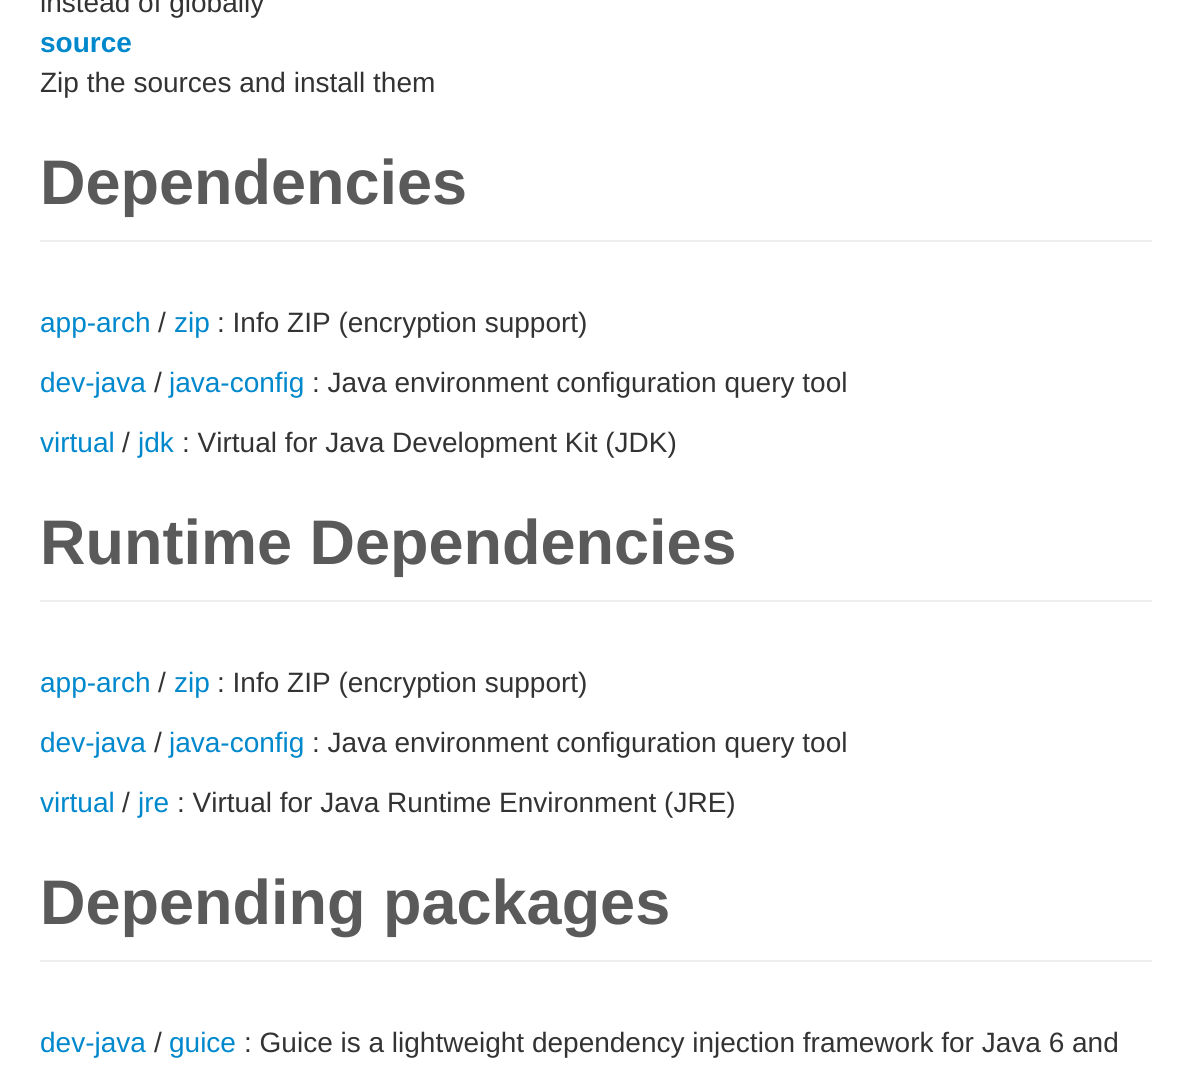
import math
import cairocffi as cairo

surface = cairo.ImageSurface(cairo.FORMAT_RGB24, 1191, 1079)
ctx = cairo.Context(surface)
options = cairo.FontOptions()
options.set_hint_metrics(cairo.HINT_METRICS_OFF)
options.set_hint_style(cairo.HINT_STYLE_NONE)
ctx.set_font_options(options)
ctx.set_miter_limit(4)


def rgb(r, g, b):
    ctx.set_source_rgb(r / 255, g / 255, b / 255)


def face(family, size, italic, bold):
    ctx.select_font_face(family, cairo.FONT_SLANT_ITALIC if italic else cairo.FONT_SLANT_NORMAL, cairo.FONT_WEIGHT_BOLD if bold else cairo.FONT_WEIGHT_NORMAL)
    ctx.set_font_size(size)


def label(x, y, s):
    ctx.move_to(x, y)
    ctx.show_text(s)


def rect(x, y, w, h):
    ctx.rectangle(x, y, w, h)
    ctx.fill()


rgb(255, 255, 255)
ctx.paint()
face('Liberation Sans', 28, 0, 0)
rgb(51, 51, 51)
label(40, 12, 'instead of globally')
face('Liberation Sans', 28, 0, 1)
rgb(0, 136, 204)
label(40, 52, 'source')
face('Liberation Sans', 28, 0, 0)
rgb(51, 51, 51)
label(40, 92, 'Zip the sources and install them')
rgb(238, 238, 238)
rect(40, 240, 1112, 2)
face('Liberation Sans', 63, 0, 1)
rgb(90, 90, 90)
label(40, 204, 'Dependencies')
face('Liberation Sans', 28, 0, 0)
rgb(0, 136, 204)
label(40, 332, 'app-arch')
rgb(51, 51, 51)
label(158, 332, '/')
rgb(0, 136, 204)
label(174, 332, 'zip')
rgb(51, 51, 51)
label(217, 332, ': Info ZIP (encryption support)')
rgb(0, 136, 204)
label(40, 392, 'dev-java')
rgb(51, 51, 51)
label(154, 392, '/')
rgb(0, 136, 204)
label(169, 392, 'java-config')
rgb(51, 51, 51)
label(312, 392, ': Java environment configuration query tool')
rgb(0, 136, 204)
label(40, 452, 'virtual')
rgb(51, 51, 51)
label(122, 452, '/')
rgb(0, 136, 204)
label(138, 452, 'jdk')
rgb(51, 51, 51)
label(182, 452, ': Virtual for Java Development Kit (JDK)')
rgb(238, 238, 238)
rect(40, 600, 1112, 2)
face('Liberation Sans', 63, 0, 1)
rgb(90, 90, 90)
label(40, 564, 'Runtime Dependencies')
face('Liberation Sans', 28, 0, 0)
rgb(0, 136, 204)
label(40, 692, 'app-arch')
rgb(51, 51, 51)
label(158, 692, '/')
rgb(0, 136, 204)
label(174, 692, 'zip')
rgb(51, 51, 51)
label(217, 692, ': Info ZIP (encryption support)')
rgb(0, 136, 204)
label(40, 752, 'dev-java')
rgb(51, 51, 51)
label(154, 752, '/')
rgb(0, 136, 204)
label(169, 752, 'java-config')
rgb(51, 51, 51)
label(312, 752, ': Java environment configuration query tool')
rgb(0, 136, 204)
label(40, 812, 'virtual')
rgb(51, 51, 51)
label(122, 812, '/')
rgb(0, 136, 204)
label(138, 812, 'jre')
rgb(51, 51, 51)
label(177, 812, ': Virtual for Java Runtime Environment (JRE)')
rgb(238, 238, 238)
rect(40, 960, 1112, 2)
face('Liberation Sans', 63, 0, 1)
rgb(90, 90, 90)
label(40, 924, 'Depending packages')
face('Liberation Sans', 28, 0, 0)
rgb(0, 136, 204)
label(40, 1052, 'dev-java')
rgb(51, 51, 51)
label(154, 1052, '/')
rgb(0, 136, 204)
label(169, 1052, 'guice')
rgb(51, 51, 51)
label(244, 1052, ': Guice is a lightweight dependency injection framework for Java 6 and')
surface.write_to_png('render.png')
